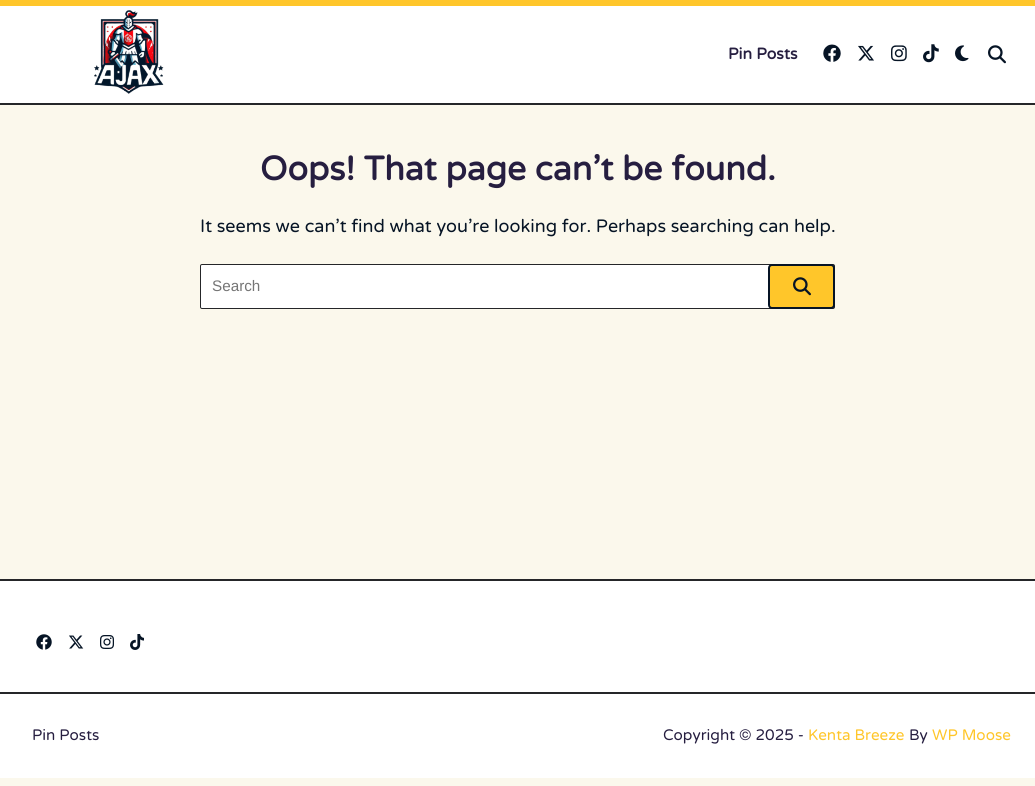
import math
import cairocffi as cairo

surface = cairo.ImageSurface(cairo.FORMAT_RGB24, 1035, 786)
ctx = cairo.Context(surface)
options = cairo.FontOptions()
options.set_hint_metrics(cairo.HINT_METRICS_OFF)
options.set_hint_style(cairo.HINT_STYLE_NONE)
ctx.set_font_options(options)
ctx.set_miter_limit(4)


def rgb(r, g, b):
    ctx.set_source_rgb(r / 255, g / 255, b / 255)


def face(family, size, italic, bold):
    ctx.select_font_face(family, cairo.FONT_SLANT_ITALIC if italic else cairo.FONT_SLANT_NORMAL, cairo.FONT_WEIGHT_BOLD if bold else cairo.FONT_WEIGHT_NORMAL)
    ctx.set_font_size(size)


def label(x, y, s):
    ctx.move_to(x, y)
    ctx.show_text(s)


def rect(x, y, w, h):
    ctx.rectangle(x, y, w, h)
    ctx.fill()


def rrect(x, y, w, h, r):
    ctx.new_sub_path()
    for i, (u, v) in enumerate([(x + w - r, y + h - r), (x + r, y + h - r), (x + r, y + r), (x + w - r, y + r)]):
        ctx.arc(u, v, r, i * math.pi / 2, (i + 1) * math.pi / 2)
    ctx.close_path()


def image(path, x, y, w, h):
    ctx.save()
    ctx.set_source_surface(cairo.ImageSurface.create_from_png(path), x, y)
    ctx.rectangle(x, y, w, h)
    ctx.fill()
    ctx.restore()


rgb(251, 248, 236)
ctx.paint()
rgb(255, 255, 255)
rect(0, 6, 1035, 97)
rgb(255, 198, 42)
rect(0, 0, 1035, 6)
rgb(37, 38, 41)
rect(0, 103, 1035, 2)
image('image0.png', 94, 10, 70, 84)
face('Varela Round', 15.75, 0, 1)
rgb(38, 30, 64)
label(728, 59, 'Pin Posts')
image('image1.png', 823, 44, 18, 18)
image('image2.png', 858, 45, 16, 16)
image('image3.png', 891, 45, 16, 17)
image('image4.png', 923, 44, 16, 19)
image('image5.png', 955, 45, 14, 17)
image('image6.png', 988, 45, 18, 19)
face('Varela Round', 33.75, 0, 1)
label(260, 180, 'Oops! That page can’t be found.')
face('Varela Round', 18, 0, 0)
rgb(6, 20, 37)
label(200, 232, 'It seems we can’t find what you’re looking for. Perhaps searching can help.')
rgb(255, 255, 255)
rrect(200.5, 264.5, 634, 44, 1.5)
ctx.fill_preserve()
rgb(37, 38, 41)
ctx.set_line_width(1)
ctx.stroke()
face('Liberation Sans', 15.25, 0, 0)
rgb(117, 117, 117)
label(212, 291, 'Search')
rgb(255, 198, 42)
rrect(769, 265, 65, 43, 3)
ctx.fill_preserve()
rgb(6, 20, 37)
ctx.set_line_width(2)
ctx.stroke()
image('image7.png', 793, 277, 18, 19)
rgb(255, 255, 255)
rect(0, 581, 1035, 111)
rgb(37, 38, 41)
rect(0, 579, 1035, 2)
image('image8.png', 36, 634, 16, 16)
image('image9.png', 69, 635, 15, 14)
image('image10.png', 100, 635, 14, 14)
image('image11.png', 130, 634, 14, 16)
rgb(255, 255, 255)
rect(0, 694, 1035, 84)
rgb(37, 38, 41)
rect(0, 692, 1035, 2)
face('Varela Round', 15.25, 0, 0)
rgb(38, 30, 64)
label(32, 740, 'Pin Posts')
label(663, 740, 'Copyright © 2025 -')
rgb(255, 198, 42)
label(808, 740, 'Kenta Breeze')
rgb(38, 30, 64)
label(909, 740, 'By')
rgb(255, 198, 42)
label(932, 740, 'WP Moose')
surface.write_to_png('render.png')
